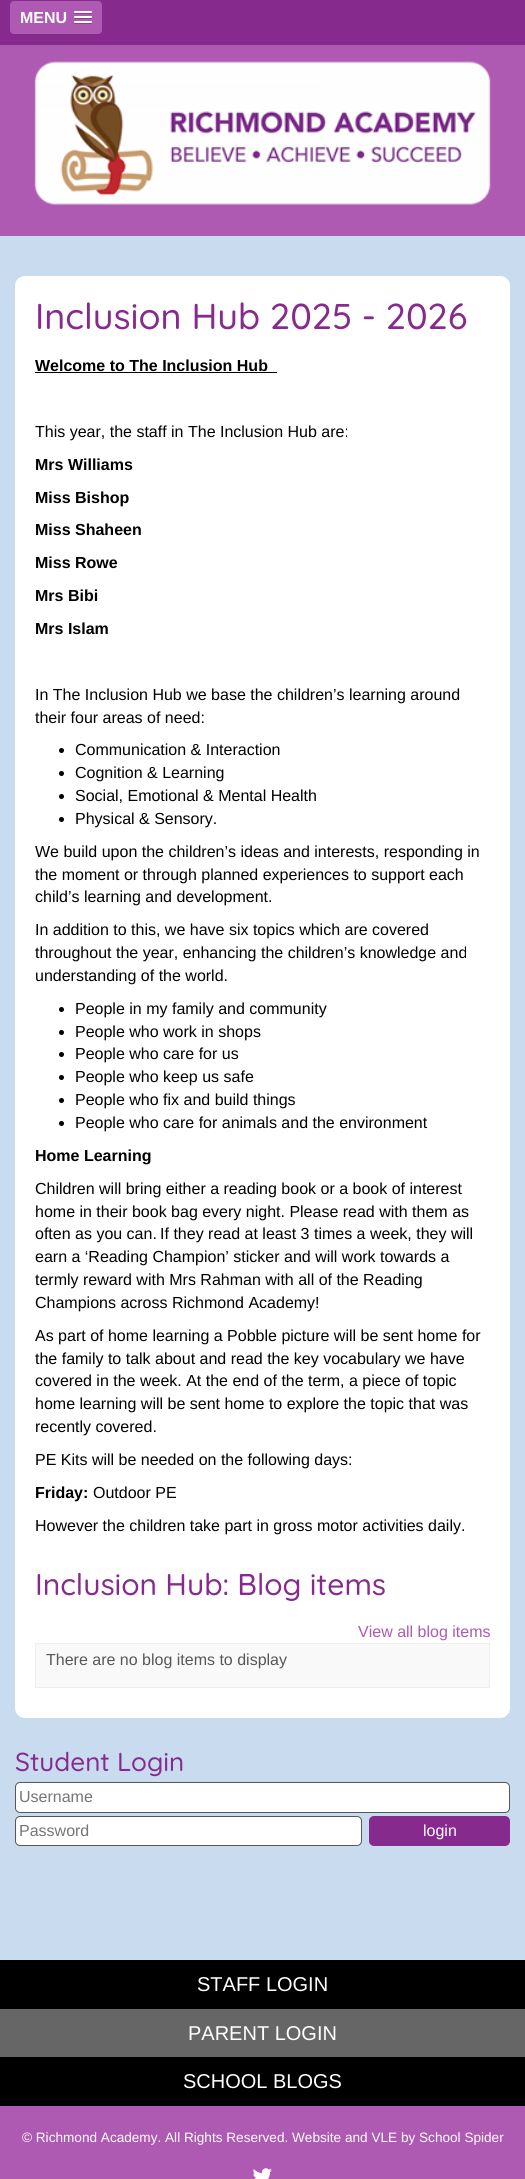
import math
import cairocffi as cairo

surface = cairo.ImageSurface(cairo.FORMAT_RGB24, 525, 2179)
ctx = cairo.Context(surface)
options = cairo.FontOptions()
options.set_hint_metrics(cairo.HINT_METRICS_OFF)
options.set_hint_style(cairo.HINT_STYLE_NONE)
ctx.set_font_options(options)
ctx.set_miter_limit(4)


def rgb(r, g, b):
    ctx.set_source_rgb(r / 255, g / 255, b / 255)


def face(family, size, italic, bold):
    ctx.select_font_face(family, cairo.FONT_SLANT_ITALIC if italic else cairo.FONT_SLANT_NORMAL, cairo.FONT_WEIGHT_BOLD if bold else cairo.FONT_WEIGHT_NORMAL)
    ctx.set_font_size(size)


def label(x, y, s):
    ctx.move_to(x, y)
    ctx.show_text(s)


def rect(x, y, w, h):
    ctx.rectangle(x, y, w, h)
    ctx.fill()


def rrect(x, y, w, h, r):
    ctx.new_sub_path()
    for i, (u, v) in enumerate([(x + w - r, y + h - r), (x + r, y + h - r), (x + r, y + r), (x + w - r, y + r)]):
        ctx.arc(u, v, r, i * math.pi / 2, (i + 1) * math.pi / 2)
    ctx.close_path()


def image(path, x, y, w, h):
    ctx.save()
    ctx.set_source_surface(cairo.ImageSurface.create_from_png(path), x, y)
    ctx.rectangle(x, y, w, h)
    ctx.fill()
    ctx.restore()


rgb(201, 220, 239)
ctx.paint()
rgb(135, 42, 142)
rect(0, 0, 525, 45)
rgb(174, 90, 178)
rrect(10, 1, 92, 33, 4)
ctx.fill()
face('Liberation Sans', 16, 0, 1)
rgb(255, 255, 255)
label(20, 23, 'MENU')
rgb(131, 68, 134)
ctx.new_path()
ctx.move_to(74, 12.5)
ctx.curve_to(73, 14.5, 77.5, 14, 77.5, 14)
ctx.line_to(88.5, 14)
ctx.curve_to(88.5, 14, 93, 14.5, 92, 12.5)
ctx.curve_to(91, 13.5, 84.5, 13, 83, 13)
ctx.curve_to(81.5, 13, 75, 13.5, 74, 12.5)
ctx.close_path()
ctx.fill()
rgb(255, 255, 255)
rrect(74, 11, 18, 2, 1)
ctx.fill()
rgb(131, 68, 134)
ctx.new_path()
ctx.move_to(74, 17.5)
ctx.curve_to(73, 19.5, 77.5, 19, 77.5, 19)
ctx.line_to(88.5, 19)
ctx.curve_to(88.5, 19, 93, 19.5, 92, 17.5)
ctx.curve_to(91, 18.5, 84.5, 18, 83, 18)
ctx.curve_to(81.5, 18, 75, 18.5, 74, 17.5)
ctx.close_path()
ctx.fill()
rgb(255, 255, 255)
rrect(74, 16, 18, 2, 1)
ctx.fill()
rgb(131, 68, 134)
ctx.new_path()
ctx.move_to(74, 22.5)
ctx.curve_to(73, 24.5, 77.5, 24, 77.5, 24)
ctx.line_to(88.5, 24)
ctx.curve_to(88.5, 24, 93, 24.5, 92, 22.5)
ctx.curve_to(91, 23.5, 84.5, 23, 83, 23)
ctx.curve_to(81.5, 23, 75, 23.5, 74, 22.5)
ctx.close_path()
ctx.fill()
rgb(255, 255, 255)
rrect(74, 21, 18, 2, 1)
ctx.fill()
rgb(174, 90, 178)
rect(0, 45, 525, 191)
image('image0.png', 34, 61, 457, 144)
rgb(255, 255, 255)
rrect(15, 276, 495, 1442, 10)
ctx.fill()
face('Quicksand Medium', 36, 0, 0)
rgb(135, 42, 142)
label(35, 329, 'Inclusion Hub 2025 - 2026')
face('Liberation Sans', 16, 0, 1)
rgb(0, 0, 0)
label(35, 371, 'Welcome to The Inclusion Hub')
rect(35, 372, 242, 1)
face('Liberation Sans', 16, 0, 0)
label(35, 437, 'This year, the staff in The Inclusion Hub are:')
face('Liberation Sans', 16, 0, 1)
label(35, 470, 'Mrs Williams')
label(35, 503, 'Miss Bishop')
label(35, 535, 'Miss Shaheen')
label(35, 568, 'Miss Rowe')
label(35, 601, 'Mrs Bibi')
label(35, 634, 'Mrs Islam')
face('Liberation Sans', 16, 0, 0)
label(35, 700, 'In The Inclusion Hub we base the children’s learning around')
label(35, 723, 'their four areas of need:')
ctx.new_path()
ctx.arc(61.5, 750.5, 2.5, 0, 2 * math.pi)
ctx.fill()
label(75, 755, 'Communication & Interaction')
ctx.new_path()
ctx.arc(61.5, 773.5, 2.5, 0, 2 * math.pi)
ctx.fill()
label(75, 778, 'Cognition & Learning')
ctx.new_path()
ctx.arc(61.5, 796.5, 2.5, 0, 2 * math.pi)
ctx.fill()
label(75, 801, 'Social, Emotional & Mental Health')
ctx.new_path()
ctx.arc(61.5, 819.5, 2.5, 0, 2 * math.pi)
ctx.fill()
label(75, 824, 'Physical & Sensory.')
label(35, 857, 'We build upon the children’s ideas and interests, responding in')
label(35, 880, 'the moment or through planned experiences to support each')
label(35, 902, 'child’s learning and development.')
label(35, 935, 'In addition to this, we have six topics which are covered')
label(35, 958, 'throughout the year, enhancing the children’s knowledge and')
label(35, 981, 'understanding of the world.')
ctx.new_path()
ctx.arc(61.5, 1009.5, 2.5, 0, 2 * math.pi)
ctx.fill()
label(75, 1014, 'People in my family and community')
ctx.new_path()
ctx.arc(61.5, 1032.5, 2.5, 0, 2 * math.pi)
ctx.fill()
label(75, 1037, 'People who work in shops')
ctx.new_path()
ctx.arc(61.5, 1054.5, 2.5, 0, 2 * math.pi)
ctx.fill()
label(75, 1059, 'People who care for us')
ctx.new_path()
ctx.arc(61.5, 1077.5, 2.5, 0, 2 * math.pi)
ctx.fill()
label(75, 1082, 'People who keep us safe')
ctx.new_path()
ctx.arc(61.5, 1100.5, 2.5, 0, 2 * math.pi)
ctx.fill()
label(75, 1105, 'People who fix and build things')
ctx.new_path()
ctx.arc(61.5, 1123.5, 2.5, 0, 2 * math.pi)
ctx.fill()
label(75, 1128, 'People who care for animals and the environment')
face('Liberation Sans', 16, 0, 1)
label(35, 1161, 'Home Learning')
face('Liberation Sans', 16, 0, 0)
label(35, 1194, 'Children will bring either a reading book or a book of interest')
label(35, 1217, 'home in their book bag every night. Please read with them as')
label(35, 1239, 'often as you can. If they read at least 3 times a week, they will')
label(35, 1262, 'earn a ‘Reading Champion’ sticker and will work towards a')
label(35, 1285, 'termly reward with Mrs Rahman with all of the Reading')
label(35, 1308, 'Champions across Richmond Academy!')
label(35, 1341, 'As part of home learning a Pobble picture will be sent home for')
label(35, 1364, 'the family to talk about and read the key vocabulary we have')
label(35, 1386, 'covered in the week. At the end of the term, a piece of topic')
label(35, 1409, 'home learning will be sent home to explore the topic that was')
label(35, 1432, 'recently covered.')
label(35, 1465, 'PE Kits will be needed on the following days:')
face('Liberation Sans', 16, 0, 1)
label(35, 1498, 'Friday:')
face('Liberation Sans', 16, 0, 0)
label(93, 1498, 'Outdoor PE')
label(35, 1531, 'However the children take part in gross motor activities daily.')
face('Quicksand Medium', 30, 0, 0)
rgb(135, 42, 142)
label(35, 1595, 'Inclusion Hub: Blog items')
face('Liberation Sans', 16, 0, 0)
rgb(174, 90, 178)
label(358, 1637, 'View all blog items')
rgb(249, 249, 249)
ctx.rectangle(35.5, 1643.5, 454, 44)
ctx.fill_preserve()
rgb(238, 238, 238)
ctx.set_line_width(1)
ctx.stroke()
rgb(87, 87, 87)
label(46, 1665, 'There are no blog items to display')
face('Quicksand Medium', 26, 0, 0)
rgb(135, 42, 142)
label(15, 1771, 'Student Login')
rgb(255, 255, 255)
rrect(15.5, 1782.5, 494, 30, 4.5)
ctx.fill_preserve()
rgb(87, 87, 87)
ctx.stroke()
face('Liberation Sans', 16, 0, 0)
rgb(117, 117, 117)
label(19, 1802, 'Username')
rgb(255, 255, 255)
rrect(15.5, 1816.5, 346, 29, 4.5)
ctx.fill_preserve()
rgb(87, 87, 87)
ctx.stroke()
rgb(117, 117, 117)
label(19, 1836, 'Password')
rgb(135, 42, 142)
rrect(369, 1816, 141, 30, 5)
ctx.fill()
rgb(255, 255, 255)
label(423, 1836, 'login')
rgb(0, 0, 0)
rect(0, 1960, 525, 49)
face('Liberation Sans', 20, 0, 0)
rgb(255, 255, 255)
label(197, 1991, 'STAFF LOGIN')
rgb(102, 102, 102)
rect(0, 2009, 525, 48)
rgb(255, 255, 255)
label(188, 2040, 'PARENT LOGIN')
rgb(0, 0, 0)
rect(0, 2057, 525, 49)
rgb(255, 255, 255)
label(183, 2088, 'SCHOOL BLOGS')
rgb(174, 90, 178)
rect(0, 2106, 525, 73)
face('Liberation Sans', 13.6, 0, 0)
rgb(255, 255, 255)
label(22, 2142, '© Richmond Academy. All Rights Reserved. Website and VLE by School Spider')
image('image1.png', 253, 2168, 19, 11)
surface.write_to_png('render.png')
